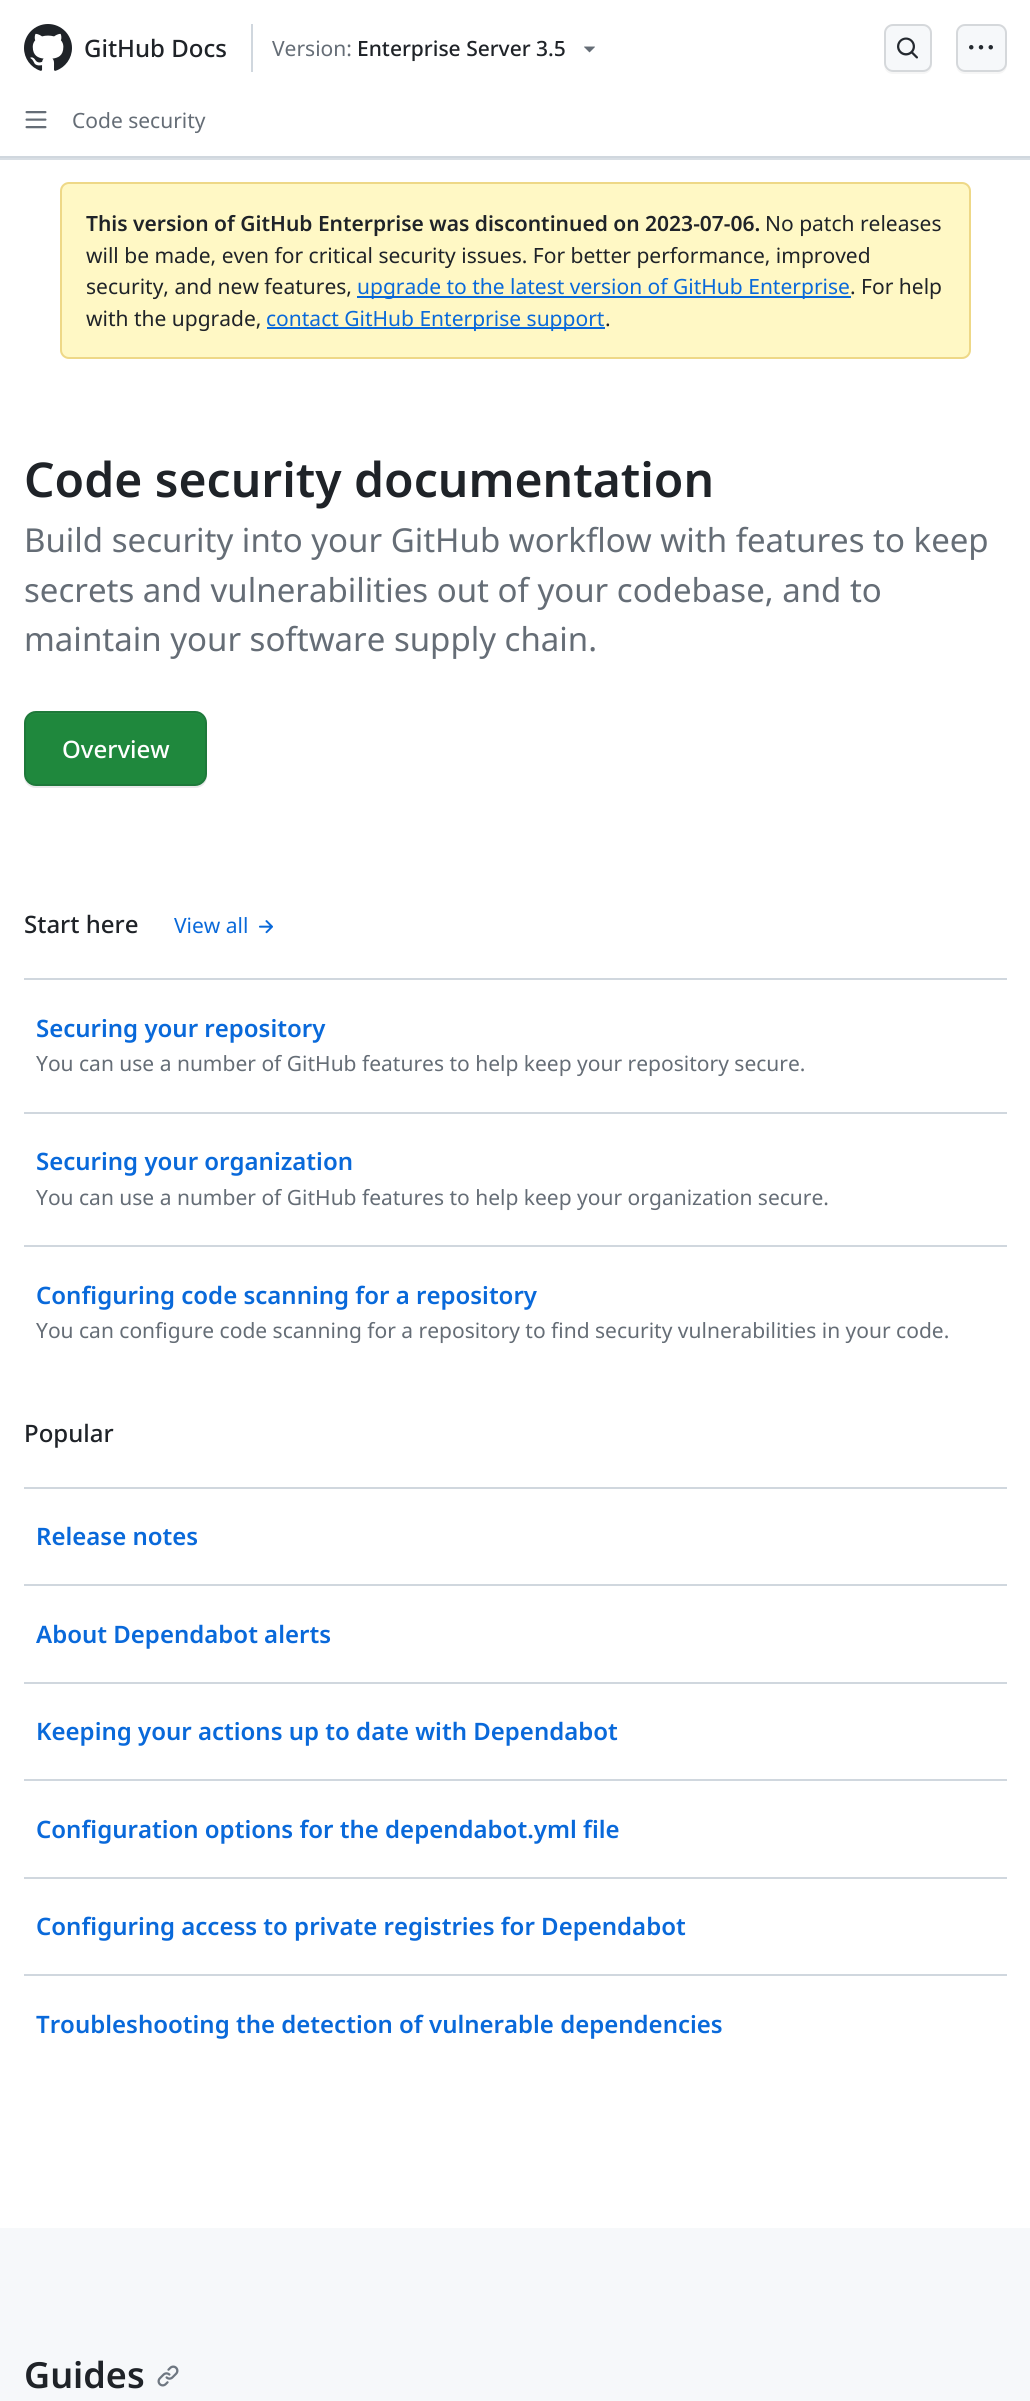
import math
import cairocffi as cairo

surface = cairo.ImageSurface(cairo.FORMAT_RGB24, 1030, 2401)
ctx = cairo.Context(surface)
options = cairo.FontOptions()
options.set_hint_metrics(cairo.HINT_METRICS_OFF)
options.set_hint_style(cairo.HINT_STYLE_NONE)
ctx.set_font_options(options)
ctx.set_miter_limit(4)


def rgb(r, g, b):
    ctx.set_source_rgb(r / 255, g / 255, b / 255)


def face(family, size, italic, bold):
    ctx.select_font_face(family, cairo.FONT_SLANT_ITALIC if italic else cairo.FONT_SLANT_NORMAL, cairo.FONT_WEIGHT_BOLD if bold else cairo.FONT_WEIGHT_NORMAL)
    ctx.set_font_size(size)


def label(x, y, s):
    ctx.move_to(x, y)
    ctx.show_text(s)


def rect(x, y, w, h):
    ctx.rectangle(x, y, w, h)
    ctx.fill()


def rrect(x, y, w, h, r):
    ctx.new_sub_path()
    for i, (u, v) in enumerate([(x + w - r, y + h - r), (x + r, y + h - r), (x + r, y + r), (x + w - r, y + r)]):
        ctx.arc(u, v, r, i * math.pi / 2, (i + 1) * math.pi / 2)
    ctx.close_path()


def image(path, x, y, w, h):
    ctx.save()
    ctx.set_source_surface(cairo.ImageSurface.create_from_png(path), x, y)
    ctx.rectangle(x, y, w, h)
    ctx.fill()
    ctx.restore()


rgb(255, 255, 255)
ctx.paint()
rgb(216, 222, 228)
rect(0, 158, 1030, 2)
rgb(208, 215, 222)
rect(0, 156, 1030, 2)
image('image0.png', 24, 24, 48, 47)
face('Noto Sans Medium', 24, 0, 0)
rgb(31, 35, 40)
label(84, 57, 'GitHub Docs')
rgb(208, 215, 222)
rect(251, 24, 2, 48)
face('Noto Sans', 21, 0, 0)
rgb(101, 109, 118)
label(272, 56, 'Version:')
face('Noto Sans Medium', 21, 0, 0)
rgb(31, 35, 40)
label(357, 56, 'Enterprise Server 3.5')
image('image1.png', 584, 46, 11, 7)
rgb(246, 246, 246)
ctx.new_path()
ctx.move_to(884, 66)
ctx.curve_to(885, 71, 888, 74, 893, 74)
ctx.line_to(923, 74)
ctx.curve_to(928, 74, 932, 70, 932, 65)
ctx.line_to(932, 35)
ctx.line_to(931, 32)
ctx.line_to(931, 65)
ctx.line_to(930, 68)
ctx.curve_to(927, 72, 922, 72, 918, 72)
ctx.line_to(898, 72)
ctx.curve_to(892, 72, 886, 72, 884, 66)
ctx.close_path()
ctx.fill()
rgb(246, 248, 250)
rrect(884, 24, 48, 48, 9)
ctx.fill()
rrect(885, 25, 46, 46, 8)
ctx.set_source_rgba(0.122, 0.137, 0.157, 0.15)
ctx.stroke()
image('image2.png', 897, 37, 21, 22)
rgb(246, 246, 246)
ctx.new_path()
ctx.move_to(956, 66)
ctx.curve_to(957, 71, 960, 74, 965, 74)
ctx.line_to(998, 74)
ctx.curve_to(1003, 74, 1007, 70, 1007, 65)
ctx.line_to(1007, 35)
ctx.line_to(1006, 32)
ctx.line_to(1006, 65)
ctx.line_to(1005, 68)
ctx.curve_to(1002, 73, 997, 72, 992, 72)
ctx.line_to(970, 72)
ctx.curve_to(964, 72, 958, 72, 956, 66)
ctx.close_path()
ctx.fill()
rgb(246, 248, 250)
rrect(956, 24, 51, 48, 9)
ctx.fill()
rrect(957, 25, 49, 46, 8)
ctx.set_source_rgba(0.122, 0.137, 0.157, 0.15)
ctx.stroke()
image('image3.png', 969, 45, 24, 5)
image('image4.png', 25, 111, 22, 18)
face('Noto Sans', 21, 0, 0)
rgb(101, 109, 118)
label(72, 128, 'Code security')
rgb(255, 248, 197)
rrect(60, 182, 911, 177, 9)
ctx.fill()
rrect(61, 183, 909, 175, 8)
ctx.set_source_rgba(0.831, 0.655, 0.173, 0.4)
ctx.stroke()
face('Noto Sans SemiBold', 21, 0, 0)
rgb(31, 35, 40)
label(86, 231, 'This version of GitHub Enterprise was discontinued on 2023-07-06.')
face('Noto Sans', 21, 0, 0)
label(765, 231, 'No patch releases')
label(86, 263, 'will be made, even for critical security issues. For better performance, improved')
label(86, 294, 'security, and new features,')
rgb(9, 105, 218)
rect(357, 296, 494, 2)
label(357, 294, 'upgrade to the latest version of GitHub Enterprise')
rgb(31, 35, 40)
label(850, 294, '. For help')
label(86, 326, 'with the upgrade,')
rgb(9, 105, 218)
rect(267, 327, 338, 2)
label(266, 326, 'contact GitHub Enterprise support')
rgb(31, 35, 40)
label(605, 326, '.')
face('Noto Sans SemiBold', 48, 0, 0)
label(24, 497, 'Code security documentation')
face('Noto Sans', 33, 0, 0)
rgb(101, 109, 118)
label(24, 552, 'Build security into your GitHub workflow with features to keep')
label(24, 602, 'secrets and vulnerabilities out of your codebase, and to')
label(24, 651, 'maintain your software supply chain.')
rgb(233, 233, 234)
ctx.new_path()
ctx.move_to(24, 774)
ctx.line_to(24, 776)
ctx.curve_to(24, 783, 29, 788, 36, 788)
ctx.line_to(195, 788)
ctx.curve_to(202, 788, 207, 783, 207, 776)
ctx.line_to(207, 774)
ctx.curve_to(207, 781, 202, 786, 195, 786)
ctx.line_to(36, 786)
ctx.curve_to(29, 786, 24, 781, 24, 774)
ctx.close_path()
ctx.fill()
rgb(31, 136, 61)
rrect(24, 711, 183, 75, 12)
ctx.fill()
rgb(38, 140, 67)
ctx.new_path()
ctx.move_to(36, 714)
ctx.line_to(195, 714)
ctx.curve_to(201, 714, 206, 719, 206, 724)
ctx.curve_to(206, 718, 201, 713, 195, 713)
ctx.line_to(37, 713)
ctx.curve_to(31, 713, 26, 718, 26, 724)
ctx.curve_to(26, 719, 30, 714, 36, 714)
ctx.close_path()
ctx.fill()
rrect(25, 712, 181, 73, 11)
ctx.set_source_rgba(0.122, 0.137, 0.157, 0.15)
ctx.stroke()
face('Noto Sans Medium', 24, 0, 0)
rgb(255, 255, 255)
label(62, 758, 'Overview')
rgb(31, 35, 40)
label(24, 933, 'Start here')
face('Noto Sans', 21, 0, 0)
rgb(9, 105, 218)
label(174, 933, 'View all')
image('image5.png', 259, 920, 14, 14)
rgb(208, 215, 222)
rect(24, 978, 983, 2)
face('Noto Sans SemiBold', 24, 0, 0)
rgb(9, 105, 218)
label(36, 1037, 'Securing your repository')
face('Noto Sans', 21, 0, 0)
rgb(101, 109, 118)
label(36, 1071, 'You can use a number of GitHub features to help keep your repository secure.')
rgb(208, 215, 222)
rect(24, 1112, 983, 2)
face('Noto Sans SemiBold', 24, 0, 0)
rgb(9, 105, 218)
label(36, 1170, 'Securing your organization')
face('Noto Sans', 21, 0, 0)
rgb(101, 109, 118)
label(36, 1205, 'You can use a number of GitHub features to help keep your organization secure.')
rgb(208, 215, 222)
rect(24, 1245, 983, 2)
face('Noto Sans SemiBold', 24, 0, 0)
rgb(9, 105, 218)
label(36, 1304, 'Configuring code scanning for a repository')
face('Noto Sans', 21, 0, 0)
rgb(101, 109, 118)
label(36, 1338, 'You can configure code scanning for a repository to find security vulnerabilities in your code.')
face('Noto Sans Medium', 24, 0, 0)
rgb(31, 35, 40)
label(24, 1442, 'Popular')
rgb(208, 215, 222)
rect(24, 1487, 983, 2)
face('Noto Sans SemiBold', 24, 0, 0)
rgb(9, 105, 218)
label(36, 1545, 'Release notes')
rgb(208, 215, 222)
rect(24, 1584, 983, 2)
rgb(9, 105, 218)
label(36, 1643, 'About Dependabot alerts')
rgb(208, 215, 222)
rect(24, 1682, 983, 2)
rgb(9, 105, 218)
label(36, 1740, 'Keeping your actions up to date with Dependabot')
rgb(208, 215, 222)
rect(24, 1779, 983, 2)
rgb(9, 105, 218)
label(36, 1838, 'Configuration options for the dependabot.yml file')
rgb(208, 215, 222)
rect(24, 1877, 983, 2)
rgb(9, 105, 218)
label(36, 1935, 'Configuring access to private registries for Dependabot')
rgb(208, 215, 222)
rect(24, 1974, 983, 2)
rgb(9, 105, 218)
label(36, 2033, 'Troubleshooting the detection of vulnerable dependencies')
rgb(246, 248, 250)
rect(0, 2228, 1030, 173)
face('Noto Sans SemiBold', 36, 0, 0)
rgb(31, 35, 40)
label(24, 2388, 'Guides')
image('image6.png', 157, 2365, 22, 22)
surface.write_to_png('render.png')
